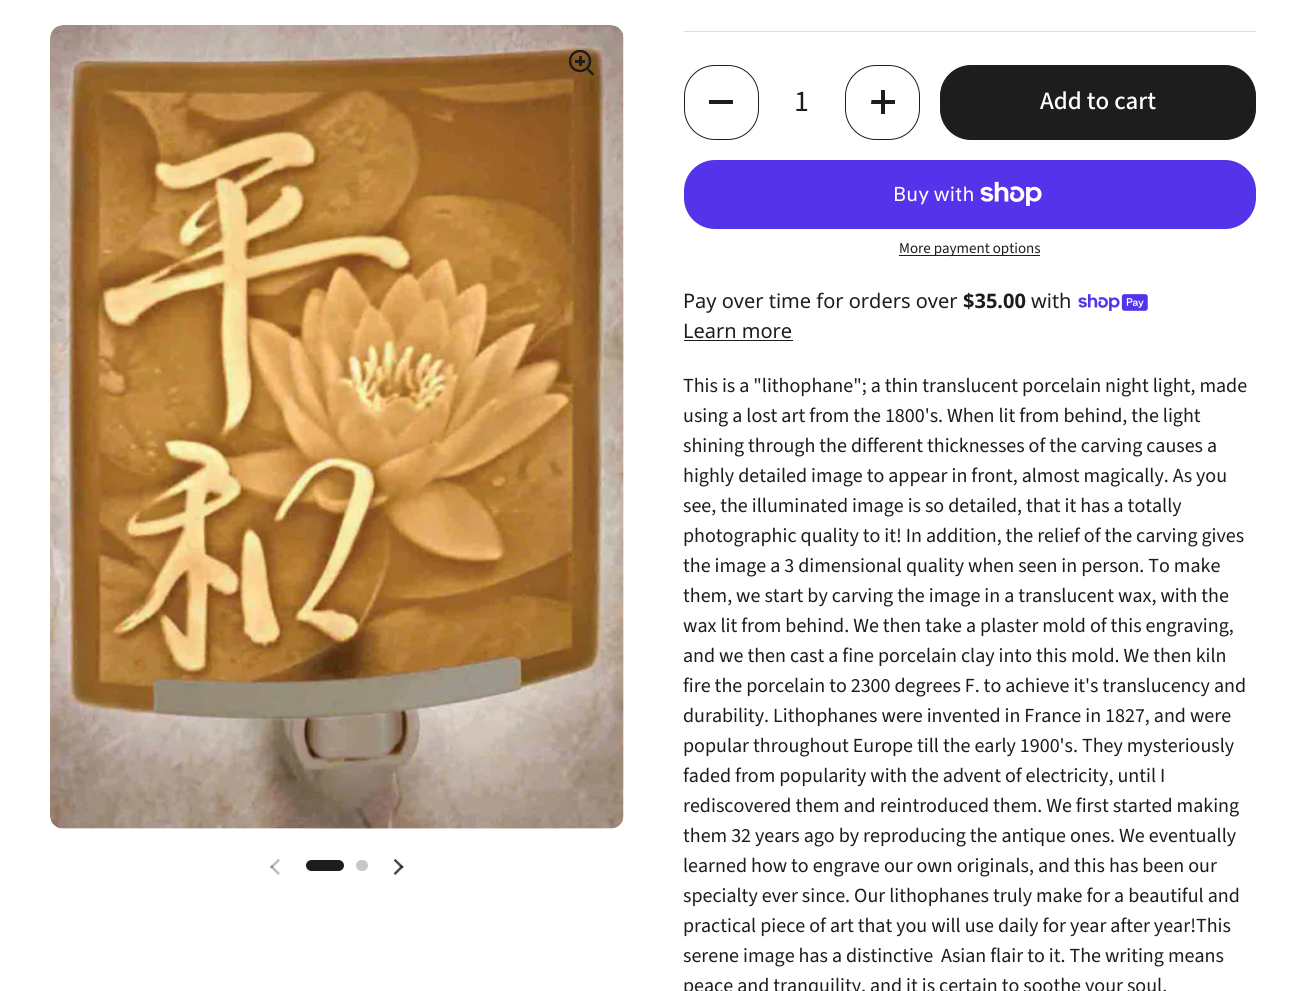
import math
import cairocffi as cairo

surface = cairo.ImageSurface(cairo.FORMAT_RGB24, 1306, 991)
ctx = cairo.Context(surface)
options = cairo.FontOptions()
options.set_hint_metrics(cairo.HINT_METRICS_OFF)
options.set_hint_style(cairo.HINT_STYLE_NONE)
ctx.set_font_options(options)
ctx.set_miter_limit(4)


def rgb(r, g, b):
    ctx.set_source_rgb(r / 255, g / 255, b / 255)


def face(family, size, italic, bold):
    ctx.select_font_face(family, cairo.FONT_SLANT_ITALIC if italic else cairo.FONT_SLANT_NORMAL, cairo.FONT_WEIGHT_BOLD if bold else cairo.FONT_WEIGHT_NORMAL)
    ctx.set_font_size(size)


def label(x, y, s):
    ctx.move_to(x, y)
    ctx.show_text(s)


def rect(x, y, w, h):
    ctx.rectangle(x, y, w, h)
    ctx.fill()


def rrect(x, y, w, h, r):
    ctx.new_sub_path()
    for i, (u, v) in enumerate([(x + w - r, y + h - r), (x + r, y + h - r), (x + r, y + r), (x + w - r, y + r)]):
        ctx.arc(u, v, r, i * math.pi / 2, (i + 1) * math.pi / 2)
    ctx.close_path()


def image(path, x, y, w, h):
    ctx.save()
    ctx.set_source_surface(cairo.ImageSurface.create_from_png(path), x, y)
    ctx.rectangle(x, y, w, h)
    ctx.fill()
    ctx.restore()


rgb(255, 255, 255)
ctx.paint()
image('image0.png', 50, 25, 574, 804)
image('image1.png', 569, 50, 25, 26)
image('image2.png', 270, 859, 10, 16)
rgb(29, 29, 29)
rrect(306, 860, 38, 11, 5.5)
ctx.fill()
rgb(199, 199, 199)
rrect(356, 860, 12, 11, 5.5)
ctx.fill()
image('image3.png', 393, 859, 11, 16)
rgb(221, 221, 221)
rect(684, 31, 572, 1)
rrect(684.5, 65.5, 74, 74, 30.5)
rgb(29, 29, 29)
ctx.set_line_width(1)
ctx.stroke()
rect(709, 100, 24, 4)
face('Source Sans Pro', 30, 0, 0)
label(794, 111, '1')
rrect(845.5, 65.5, 74, 74, 30.5)
ctx.stroke()
rect(881, 90, 4, 24)
ctx.new_path()
ctx.move_to(895, 100)
ctx.line_to(895, 104)
ctx.line_to(871, 104)
ctx.line_to(871.5, 100)
ctx.close_path()
ctx.fill()
rrect(940.5, 65.5, 315, 74, 30.5)
ctx.fill_preserve()
ctx.stroke()
face('Source Sans Pro Medium', 25, 0, 0)
rgb(255, 255, 255)
label(1040, 109, 'Add to cart')
rgb(84, 51, 235)
rrect(684, 160, 572, 69, 31)
ctx.fill()
face('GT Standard', 20, 0, 0)
rgb(255, 255, 255)
label(893, 201, 'Buy with')
image('image4.png', 980, 181, 62, 25)
rgb(29, 29, 29)
rect(899, 255, 141, 1)
face('Source Sans Pro', 15, 0, 0)
label(899, 253, 'More payment options')
face('Noto Sans', 20, 0, 0)
label(683, 308, 'Pay over time for orders over')
face('Noto Sans', 20, 0, 1)
label(963, 308, '$35.00')
face('Noto Sans', 20, 0, 0)
label(1031, 308, 'with')
image('image5.png', 1078, 294, 70, 17)
label(683, 338, 'Learn more')
rect(684, 340, 109, 1)
face('Source Sans Pro', 20, 0, 0)
label(683, 392, 'This is a "lithophane"; a thin translucent porcelain night light, made')
label(683, 422, 'using a lost art from the 1800\'s. When lit from behind, the light')
label(683, 452, 'shining through the different thicknesses of the carving causes a')
label(683, 482, 'highly detailed image to appear in front, almost magically. As you')
label(683, 512, 'see, the illuminated image is so detailed, that it has a totally')
label(683, 542, 'photographic quality to it! In addition, the relief of the carving gives')
label(683, 572, 'the image a 3 dimensional quality when seen in person. To make')
label(683, 602, 'them, we start by carving the image in a translucent wax, with the')
label(683, 632, 'wax lit from behind. We then take a plaster mold of this engraving,')
label(683, 662, 'and we then cast a fine porcelain clay into this mold. We then kiln')
label(683, 692, 'fire the porcelain to 2300 degrees F. to achieve it\'s translucency and')
label(683, 722, 'durability. Lithophanes were invented in France in 1827, and were')
label(683, 752, 'popular throughout Europe till the early 1900\'s. They mysteriously')
label(683, 782, 'faded from popularity with the advent of electricity, until I')
label(683, 812, 'rediscovered them and reintroduced them. We first started making')
label(683, 842, 'them 32 years ago by reproducing the antique ones. We eventually')
label(683, 872, 'learned how to engrave our own originals, and this has been our')
label(683, 902, 'specialty ever since. Our lithophanes truly make for a beautiful and')
label(683, 932, 'practical piece of art that you will use daily for year after year!This')
label(683, 962, 'serene image has a distinctive  Asian flair to it. The writing means')
label(683, 992, 'peace and tranquility, and it is certain to soothe your soul.')
surface.write_to_png('render.png')
